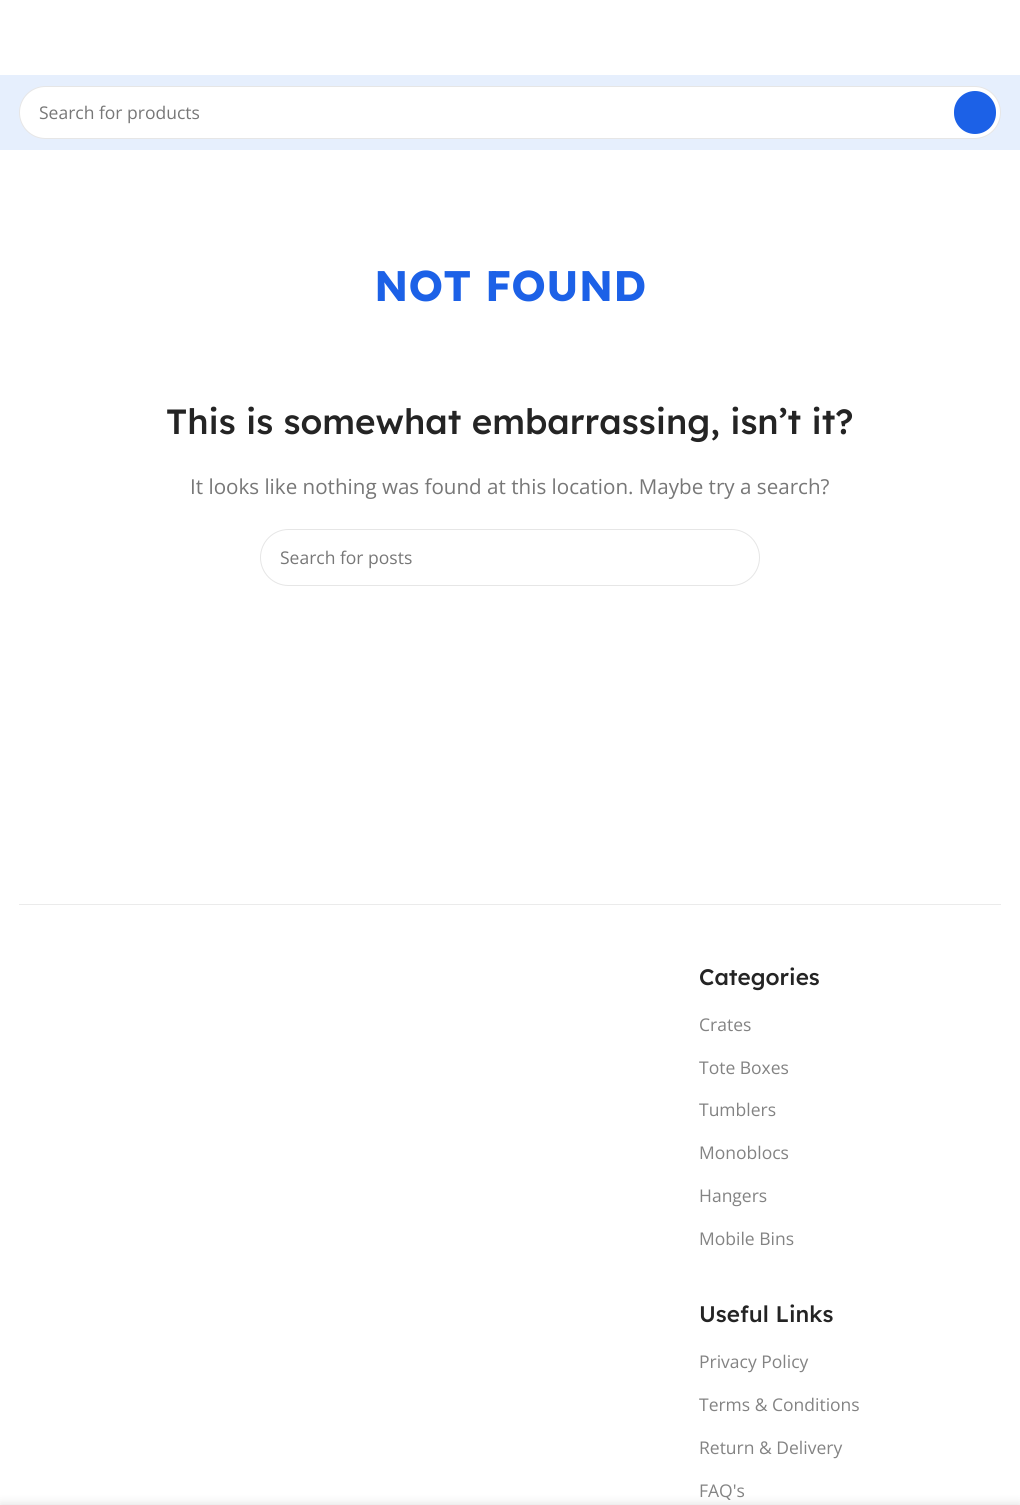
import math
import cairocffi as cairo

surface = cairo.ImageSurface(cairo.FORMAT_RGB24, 1020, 1505)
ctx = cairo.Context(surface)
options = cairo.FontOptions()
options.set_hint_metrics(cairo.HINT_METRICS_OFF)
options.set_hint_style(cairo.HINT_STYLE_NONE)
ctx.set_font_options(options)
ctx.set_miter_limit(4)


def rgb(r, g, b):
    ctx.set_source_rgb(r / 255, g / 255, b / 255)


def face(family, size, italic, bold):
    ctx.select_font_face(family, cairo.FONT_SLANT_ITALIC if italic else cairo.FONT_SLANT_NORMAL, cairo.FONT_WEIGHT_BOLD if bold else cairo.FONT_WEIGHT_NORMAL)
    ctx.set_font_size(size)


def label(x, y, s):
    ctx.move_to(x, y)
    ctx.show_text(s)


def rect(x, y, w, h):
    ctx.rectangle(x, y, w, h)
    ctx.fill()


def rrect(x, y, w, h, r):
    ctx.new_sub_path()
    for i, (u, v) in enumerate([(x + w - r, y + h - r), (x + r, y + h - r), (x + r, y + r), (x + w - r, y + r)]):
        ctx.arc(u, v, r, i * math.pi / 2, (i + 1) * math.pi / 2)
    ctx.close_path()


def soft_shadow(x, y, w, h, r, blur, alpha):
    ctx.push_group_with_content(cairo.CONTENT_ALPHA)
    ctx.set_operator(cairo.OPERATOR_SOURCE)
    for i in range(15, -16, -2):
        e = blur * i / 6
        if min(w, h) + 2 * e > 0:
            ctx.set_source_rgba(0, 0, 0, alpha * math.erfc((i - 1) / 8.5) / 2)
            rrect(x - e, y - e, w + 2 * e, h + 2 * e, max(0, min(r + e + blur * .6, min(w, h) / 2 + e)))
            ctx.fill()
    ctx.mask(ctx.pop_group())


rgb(255, 255, 255)
ctx.paint()
rgb(230, 239, 253)
rect(0, 75, 1020, 75)
rgb(255, 255, 255)
rrect(19, 86, 982, 53, 26.5)
ctx.fill()
rrect(19.5, 86.5, 981, 52, 26)
ctx.set_source_rgba(0, 0, 0, 0.1)
ctx.set_line_width(1)
ctx.stroke()
face('Open Sans', 17.5, 0, 0)
rgb(119, 119, 119)
label(39, 119, 'Search for products')
rgb(28, 97, 231)
rrect(954, 91, 42, 43, 21)
ctx.fill()
face('Lexend Deca', 42.75, 0, 1)
label(374, 301, 'NOT FOUND')
face('Lexend Deca Medium', 35, 0, 0)
rgb(36, 36, 36)
label(166, 434, 'This is somewhat embarrassing, isn’t it?')
face('Open Sans', 20.6, 0, 0)
rgb(119, 119, 119)
label(190, 494, 'It looks like nothing was found at this location. Maybe try a search?')
rrect(260.5, 529.5, 499, 56, 28)
rgb(230, 230, 230)
ctx.stroke()
face('Open Sans', 17.5, 0, 0)
rgb(119, 119, 119)
label(280, 564, 'Search for posts')
rgb(235, 235, 235)
rect(19, 904, 982, 1)
face('Lexend Deca Medium', 22.5, 0, 0)
rgb(36, 36, 36)
label(699, 985, 'Categories')
face('Open Sans', 17.5, 0, 0)
rgb(131, 131, 131)
label(699, 1031, 'Crates')
label(699, 1074, 'Tote Boxes')
label(699, 1116, 'Tumblers')
label(699, 1159, 'Monoblocs')
label(699, 1202, 'Hangers')
label(699, 1245, 'Mobile Bins')
face('Lexend Deca Medium', 22.5, 0, 0)
rgb(36, 36, 36)
label(699, 1322, 'Useful Links')
face('Open Sans', 17.5, 0, 0)
rgb(131, 131, 131)
label(699, 1368, 'Privacy Policy')
label(699, 1411, 'Terms & Conditions')
label(699, 1454, 'Return & Delivery')
label(699, 1497, 'FAQ\'s')
rgb(0, 0, 0)
soft_shadow(0, 1505, 1020, 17, 0, 5.5, 0.14)
surface.write_to_png('render.png')
